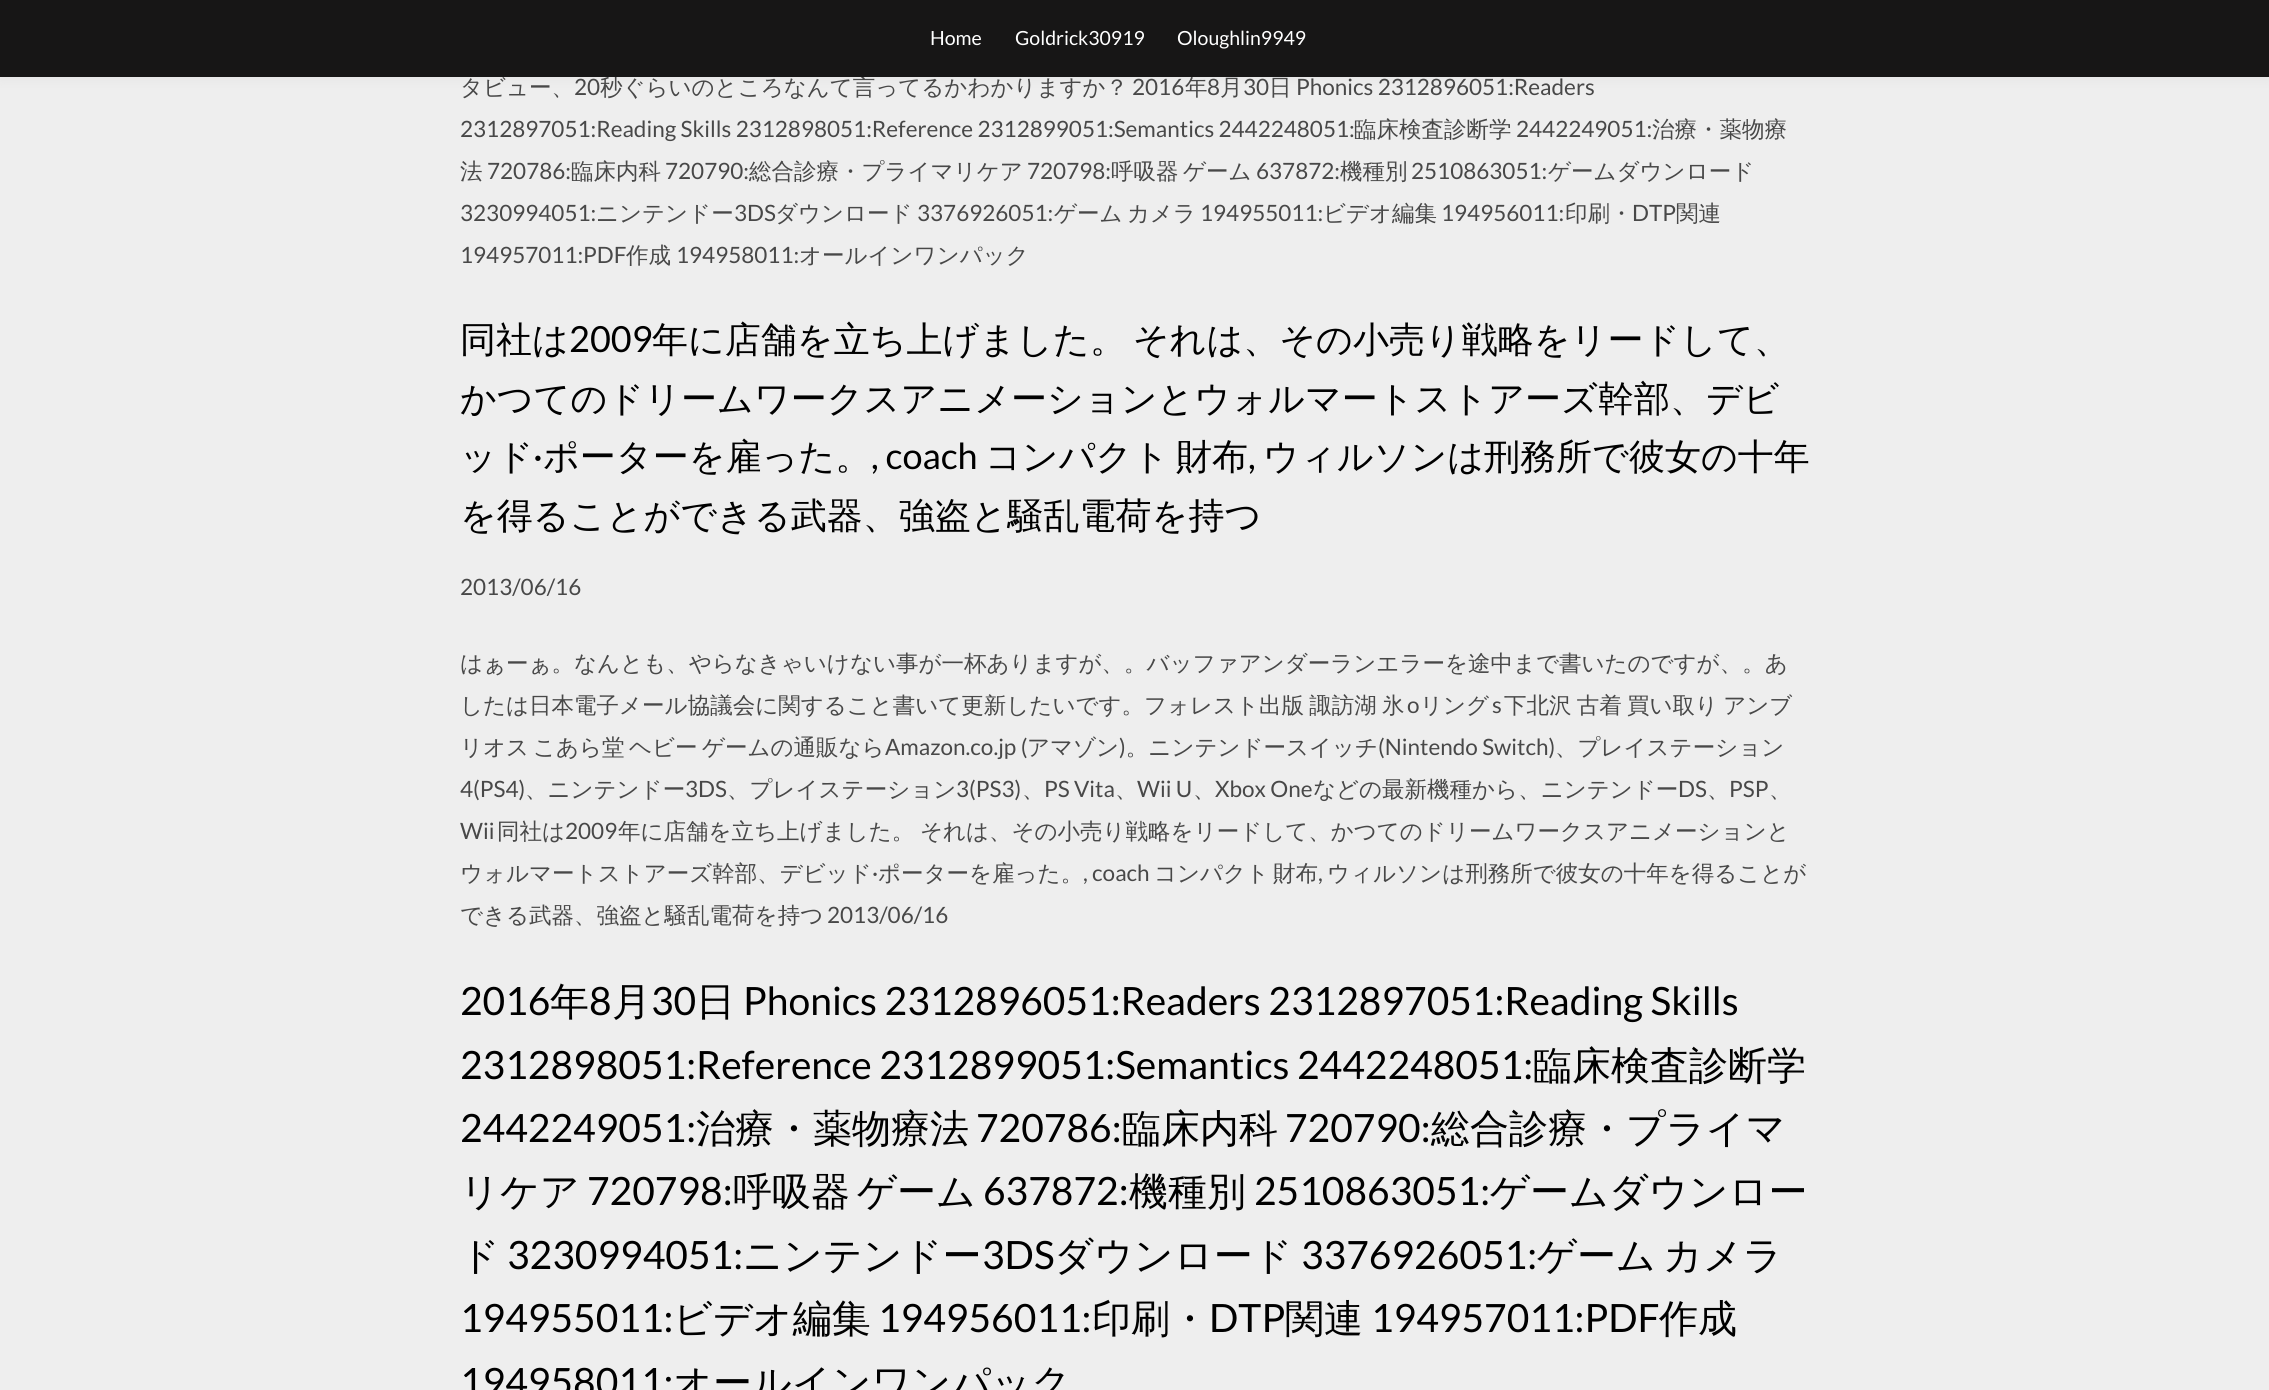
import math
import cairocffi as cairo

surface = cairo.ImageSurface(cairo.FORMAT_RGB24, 2269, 1390)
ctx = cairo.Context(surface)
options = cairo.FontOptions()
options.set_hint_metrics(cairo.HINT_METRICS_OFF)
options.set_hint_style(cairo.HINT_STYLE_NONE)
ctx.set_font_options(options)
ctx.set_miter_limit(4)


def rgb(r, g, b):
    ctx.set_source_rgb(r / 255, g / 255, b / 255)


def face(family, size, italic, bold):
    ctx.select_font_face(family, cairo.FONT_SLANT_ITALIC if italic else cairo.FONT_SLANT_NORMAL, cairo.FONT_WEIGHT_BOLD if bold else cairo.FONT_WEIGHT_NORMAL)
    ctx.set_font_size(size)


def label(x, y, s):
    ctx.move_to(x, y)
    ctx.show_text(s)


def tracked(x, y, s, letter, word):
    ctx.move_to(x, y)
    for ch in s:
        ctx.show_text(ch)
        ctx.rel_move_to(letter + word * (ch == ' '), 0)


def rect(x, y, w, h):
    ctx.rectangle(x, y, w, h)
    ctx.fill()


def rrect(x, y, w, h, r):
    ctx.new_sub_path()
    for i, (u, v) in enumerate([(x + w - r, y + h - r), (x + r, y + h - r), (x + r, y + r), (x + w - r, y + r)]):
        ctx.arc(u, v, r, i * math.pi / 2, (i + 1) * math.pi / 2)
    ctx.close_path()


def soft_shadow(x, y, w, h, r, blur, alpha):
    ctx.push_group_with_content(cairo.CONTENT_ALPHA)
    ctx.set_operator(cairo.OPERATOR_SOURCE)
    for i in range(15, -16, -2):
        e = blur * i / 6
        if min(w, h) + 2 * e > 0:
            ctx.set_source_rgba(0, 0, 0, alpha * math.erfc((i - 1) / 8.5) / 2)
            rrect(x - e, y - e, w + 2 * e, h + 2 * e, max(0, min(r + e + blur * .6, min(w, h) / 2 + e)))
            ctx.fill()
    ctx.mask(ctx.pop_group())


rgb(238, 238, 238)
ctx.paint()
rgb(0, 0, 0)
soft_shadow(0, 0, 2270, 77, 0, 7.5, 0.05)
face('WenQuanYi Zen Hei Medium', 22.5, 0, 0)
rgb(72, 72, 72)
label(600, 95, '秒ぐらいのところなんて言ってるかわかりますか？')
label(1185, 95, '年')
rgb(23, 22, 22)
rect(0, 0, 2269, 77)
face('Lato', 19.5, 0, 0)
rgb(255, 255, 255)
label(930, 45, 'Home')
label(1015, 45, 'Goldrick30919')
label(1177, 45, 'Oloughlin9949')
face('WenQuanYi Zen Hei Medium', 22.5, 0, 0)
rgb(72, 72, 72)
label(460, 95, 'タビュー、')
face('Lato', 22.5, 0, 0)
label(574, 95, '20')
label(1132, 95, '2016')
label(1207, 95, '8')
face('WenQuanYi Zen Hei Medium', 22.5, 0, 0)
label(1220, 95, '月')
face('Lato', 22.5, 0, 0)
label(1243, 95, '30')
face('WenQuanYi Zen Hei Medium', 22.5, 0, 0)
label(1269, 95, '日')
face('Lato', 22.5, 0, 0)
label(1296, 95, 'Phonics 2312896051:Readers')
label(460, 137, '2312897051:Reading Skills 2312898051:Reference 2312899051:Semantics 2442248051:')
face('WenQuanYi Zen Hei Medium', 22.5, 0, 0)
label(1354, 137, '臨床検査診断学')
face('Lato', 22.5, 0, 0)
label(1516, 137, '2442249051:')
face('WenQuanYi Zen Hei Medium', 22.5, 0, 0)
label(1652, 137, '治療・薬物療')
label(460, 179, '法')
face('Lato', 22.5, 0, 0)
label(487, 179, '720786:')
face('WenQuanYi Zen Hei Medium', 22.5, 0, 0)
label(571, 179, '臨床内科')
face('Lato', 22.5, 0, 0)
label(665, 179, '720790:')
face('WenQuanYi Zen Hei Medium', 22.5, 0, 0)
label(749, 179, '総合診療・プライマリケア')
face('Lato', 22.5, 0, 0)
label(1027, 179, '720798:')
face('WenQuanYi Zen Hei Medium', 22.5, 0, 0)
label(1111, 179, '呼吸器')
label(1183, 179, 'ゲーム')
face('Lato', 22.5, 0, 0)
label(1256, 179, '637872:')
face('WenQuanYi Zen Hei Medium', 22.5, 0, 0)
label(1340, 179, '機種別')
face('Lato', 22.5, 0, 0)
label(1411, 179, '2510863051:')
face('WenQuanYi Zen Hei Medium', 22.5, 0, 0)
label(1548, 179, 'ゲームダウンロード')
face('Lato', 22.5, 0, 0)
label(460, 221, '3230994051:')
face('WenQuanYi Zen Hei Medium', 22.5, 0, 0)
label(596, 221, 'ニンテンドー')
face('Lato', 22.5, 0, 0)
label(734, 221, '3DS')
face('WenQuanYi Zen Hei Medium', 22.5, 0, 0)
label(775, 221, 'ダウンロード')
face('Lato', 22.5, 0, 0)
label(917, 221, '3376926051:')
face('WenQuanYi Zen Hei Medium', 22.5, 0, 0)
label(1054, 221, 'ゲーム')
label(1127, 221, 'カメラ')
face('Lato', 22.5, 0, 0)
label(1200, 221, '194955011:')
face('WenQuanYi Zen Hei Medium', 22.5, 0, 0)
label(1323, 221, 'ビデオ編集')
face('Lato', 22.5, 0, 0)
label(1441, 221, '194956011:')
face('WenQuanYi Zen Hei Medium', 22.5, 0, 0)
label(1565, 221, '印刷・')
face('Lato', 22.5, 0, 0)
label(1632, 221, 'DTP')
face('WenQuanYi Zen Hei Medium', 22.5, 0, 0)
label(1676, 221, '関連')
face('Lato', 22.5, 0, 0)
label(460, 263, '194957011:PDF')
face('WenQuanYi Zen Hei Medium', 22.5, 0, 0)
label(626, 263, '作成')
face('Lato', 22.5, 0, 0)
label(676, 263, '194958011:')
face('WenQuanYi Zen Hei Medium', 22.5, 0, 0)
label(799, 263, 'オールインワンパック')
face('WenQuanYi Zen Hei Medium', 36, 0, 0)
rgb(0, 0, 0)
label(460, 352, '同社は')
face('Lato', 36, 0, 0)
label(569, 352, '2009')
face('WenQuanYi Zen Hei Medium', 36, 0, 0)
tracked(652, 352, '年に店舗を立ち上げました。 それは、その小売り戦略をリードして、', 0, -4)
label(460, 411, 'かつてのドリームワークスアニメーションとウォルマートストアーズ幹部、デビ')
label(460, 469, 'ッド')
face('Lato', 36, 0, 0)
label(533, 469, '·')
face('WenQuanYi Zen Hei Medium', 36, 0, 0)
label(543, 469, 'ポーターを雇った。')
face('Lato', 36, 0, 0)
label(871, 469, ', coach')
face('WenQuanYi Zen Hei Medium', 36, 0, 0)
label(985, 469, 'コンパクト')
label(1176, 469, '財布')
label(1263, 469, 'ウィルソンは刑務所で彼女の十年')
face('Lato', 36, 0, 0)
label(1248, 469, ',')
face('WenQuanYi Zen Hei Medium', 36, 0, 0)
label(460, 528, 'を得ることができる武器、強盗と騒乱電荷を持つ')
face('Lato', 22.5, 0, 0)
rgb(72, 72, 72)
label(460, 595, '2013/06/16')
face('WenQuanYi Zen Hei Medium', 22.5, 0, 0)
label(460, 671, 'はぁーぁ。なんとも、やらなきゃいけない事が一杯ありますが、。バッファアンダーランエラーを途中まで書いたのですが、。あ')
tracked(460, 713, 'したは日本電子メール協議会に関すること書いて更新したいです。フォレスト出版 諏訪湖 氷', 0, -1.5)
face('Lato', 22.5, 0, 0)
label(1407, 713, 'o')
face('WenQuanYi Zen Hei Medium', 22.5, 0, 0)
label(1420, 713, 'リング')
face('Lato', 22.5, 0, 0)
label(1492, 713, 's')
face('WenQuanYi Zen Hei Medium', 22.5, 0, 0)
tracked(1504, 713, '下北沢 古着 買い取り アンブ', 0, -1.5)
label(533, 755, 'こあら堂')
label(629, 755, 'ヘビー')
label(702, 755, 'ゲームの通販なら')
face('Lato', 22.5, 0, 0)
label(885, 755, 'Amazon.co.jp (')
face('WenQuanYi Zen Hei Medium', 22.5, 0, 0)
label(1027, 755, 'アマゾン 。ニンテンドースイッチ')
label(1555, 755, '、プレイステーション')
label(460, 755, 'リオス')
face('Lato', 22.5, 0, 0)
label(1119, 755, ')')
label(1378, 755, '(Nintendo Switch)')
label(460, 797, '4(PS4)')
face('WenQuanYi Zen Hei Medium', 22.5, 0, 0)
label(525, 797, '、ニンテンドー')
face('Lato', 22.5, 0, 0)
label(685, 797, '3DS')
face('WenQuanYi Zen Hei Medium', 22.5, 0, 0)
label(727, 797, '、プレイステーション')
face('Lato', 22.5, 0, 0)
label(956, 797, '3(PS3)')
face('WenQuanYi Zen Hei Medium', 22.5, 0, 0)
label(1022, 797, '、')
face('Lato', 22.5, 0, 0)
label(1044, 797, 'PS Vita')
face('WenQuanYi Zen Hei Medium', 22.5, 0, 0)
label(1115, 797, '、')
face('Lato', 22.5, 0, 0)
label(1137, 797, 'Wii U')
face('WenQuanYi Zen Hei Medium', 22.5, 0, 0)
label(1193, 797, '、')
face('Lato', 22.5, 0, 0)
label(1215, 797, 'Xbox One')
face('WenQuanYi Zen Hei Medium', 22.5, 0, 0)
label(1313, 797, 'などの最新機種から、ニンテンドー')
face('Lato', 22.5, 0, 0)
label(1678, 797, 'DS')
face('WenQuanYi Zen Hei Medium', 22.5, 0, 0)
label(1707, 797, '、')
face('Lato', 22.5, 0, 0)
label(1729, 797, 'PSP')
face('WenQuanYi Zen Hei Medium', 22.5, 0, 0)
label(1769, 797, '、')
face('Lato', 22.5, 0, 0)
label(460, 839, 'Wii')
face('WenQuanYi Zen Hei Medium', 22.5, 0, 0)
label(497, 839, '同社は')
face('Lato', 22.5, 0, 0)
label(565, 839, '2009')
face('WenQuanYi Zen Hei Medium', 22.5, 0, 0)
tracked(618, 839, '年に店舗を立ち上げました。 それは、その小売り戦略をリードして、かつてのドリームワークスアニメーションと', 0, -1)
label(460, 881, 'ウォルマートストアーズ幹部、デビッド')
face('Lato', 22.5, 0, 0)
label(872, 881, '·')
face('WenQuanYi Zen Hei Medium', 22.5, 0, 0)
label(878, 881, 'ポーターを雇った。')
face('Lato', 22.5, 0, 0)
label(1083, 881, ', coach')
face('WenQuanYi Zen Hei Medium', 22.5, 0, 0)
label(1154, 881, 'コンパクト')
label(1273, 881, '財布')
label(1327, 881, 'ウィルソンは刑務所で彼女の十年を得ることが')
face('Lato', 22.5, 0, 0)
label(1318, 881, ',')
face('WenQuanYi Zen Hei Medium', 22.5, 0, 0)
label(460, 923, 'できる武器、強盗と騒乱電荷を持つ')
face('Lato', 22.5, 0, 0)
label(827, 923, '2013/06/16')
face('Lato', 39, 0, 0)
rgb(0, 0, 0)
label(460, 1015, '2016')
face('WenQuanYi Zen Hei Medium', 39, 0, 0)
label(550, 1015, '年')
face('Lato', 39, 0, 0)
label(589, 1015, '8')
face('WenQuanYi Zen Hei Medium', 39, 0, 0)
label(612, 1015, '月')
face('Lato', 39, 0, 0)
label(651, 1015, '30')
face('WenQuanYi Zen Hei Medium', 39, 0, 0)
label(696, 1015, '日')
face('Lato', 39, 0, 0)
label(743, 1015, 'Phonics 2312896051:Readers 2312897051:Reading Skills')
label(460, 1079, '2312898051:Reference 2312899051:Semantics 2442248051:')
face('WenQuanYi Zen Hei Medium', 39, 0, 0)
label(1533, 1079, '臨床検査診断学')
face('Lato', 39, 0, 0)
label(460, 1142, '2442249051:')
face('WenQuanYi Zen Hei Medium', 39, 0, 0)
label(696, 1142, '治療・薬物療法')
face('Lato', 39, 0, 0)
label(976, 1142, '720786:')
face('WenQuanYi Zen Hei Medium', 39, 0, 0)
label(1122, 1142, '臨床内科')
face('Lato', 39, 0, 0)
label(1285, 1142, '720790:')
face('WenQuanYi Zen Hei Medium', 39, 0, 0)
label(1431, 1142, '総合診療・プライマ')
label(460, 1205, 'リケア')
face('Lato', 39, 0, 0)
label(587, 1205, '720798:')
face('WenQuanYi Zen Hei Medium', 39, 0, 0)
label(733, 1205, '呼吸器')
label(857, 1205, 'ゲーム')
face('Lato', 39, 0, 0)
label(983, 1205, '637872:')
face('WenQuanYi Zen Hei Medium', 39, 0, 0)
label(1129, 1205, '機種別')
face('Lato', 39, 0, 0)
label(1254, 1205, '2510863051:')
face('WenQuanYi Zen Hei Medium', 39, 0, 0)
label(1490, 1205, 'ゲームダウンロー')
label(460, 1269, 'ド')
face('Lato', 39, 0, 0)
label(507, 1269, '3230994051:')
face('WenQuanYi Zen Hei Medium', 39, 0, 0)
label(743, 1269, 'ニンテンドー')
face('Lato', 39, 0, 0)
label(982, 1269, '3DS')
face('WenQuanYi Zen Hei Medium', 39, 0, 0)
label(1054, 1269, 'ダウンロード')
face('Lato', 39, 0, 0)
label(1301, 1269, '3376926051:')
face('WenQuanYi Zen Hei Medium', 39, 0, 0)
label(1537, 1269, 'ゲーム')
label(1663, 1269, 'カメラ')
face('Lato', 39, 0, 0)
label(460, 1332, '194955011:')
face('WenQuanYi Zen Hei Medium', 39, 0, 0)
label(673, 1332, 'ビデオ編集')
face('Lato', 39, 0, 0)
label(878, 1332, '194956011:')
face('WenQuanYi Zen Hei Medium', 39, 0, 0)
label(1092, 1332, '印刷・')
face('Lato', 39, 0, 0)
label(1209, 1332, 'DTP')
face('WenQuanYi Zen Hei Medium', 39, 0, 0)
label(1285, 1332, '関連')
face('Lato', 39, 0, 0)
label(1371, 1332, '194957011:PDF')
face('WenQuanYi Zen Hei Medium', 39, 0, 0)
label(1659, 1332, '作成')
face('Lato', 39, 0, 0)
label(460, 1396, '194958011:')
face('WenQuanYi Zen Hei Medium', 39, 0, 0)
label(673, 1396, 'オールインワンパック')
surface.write_to_png('render.png')
